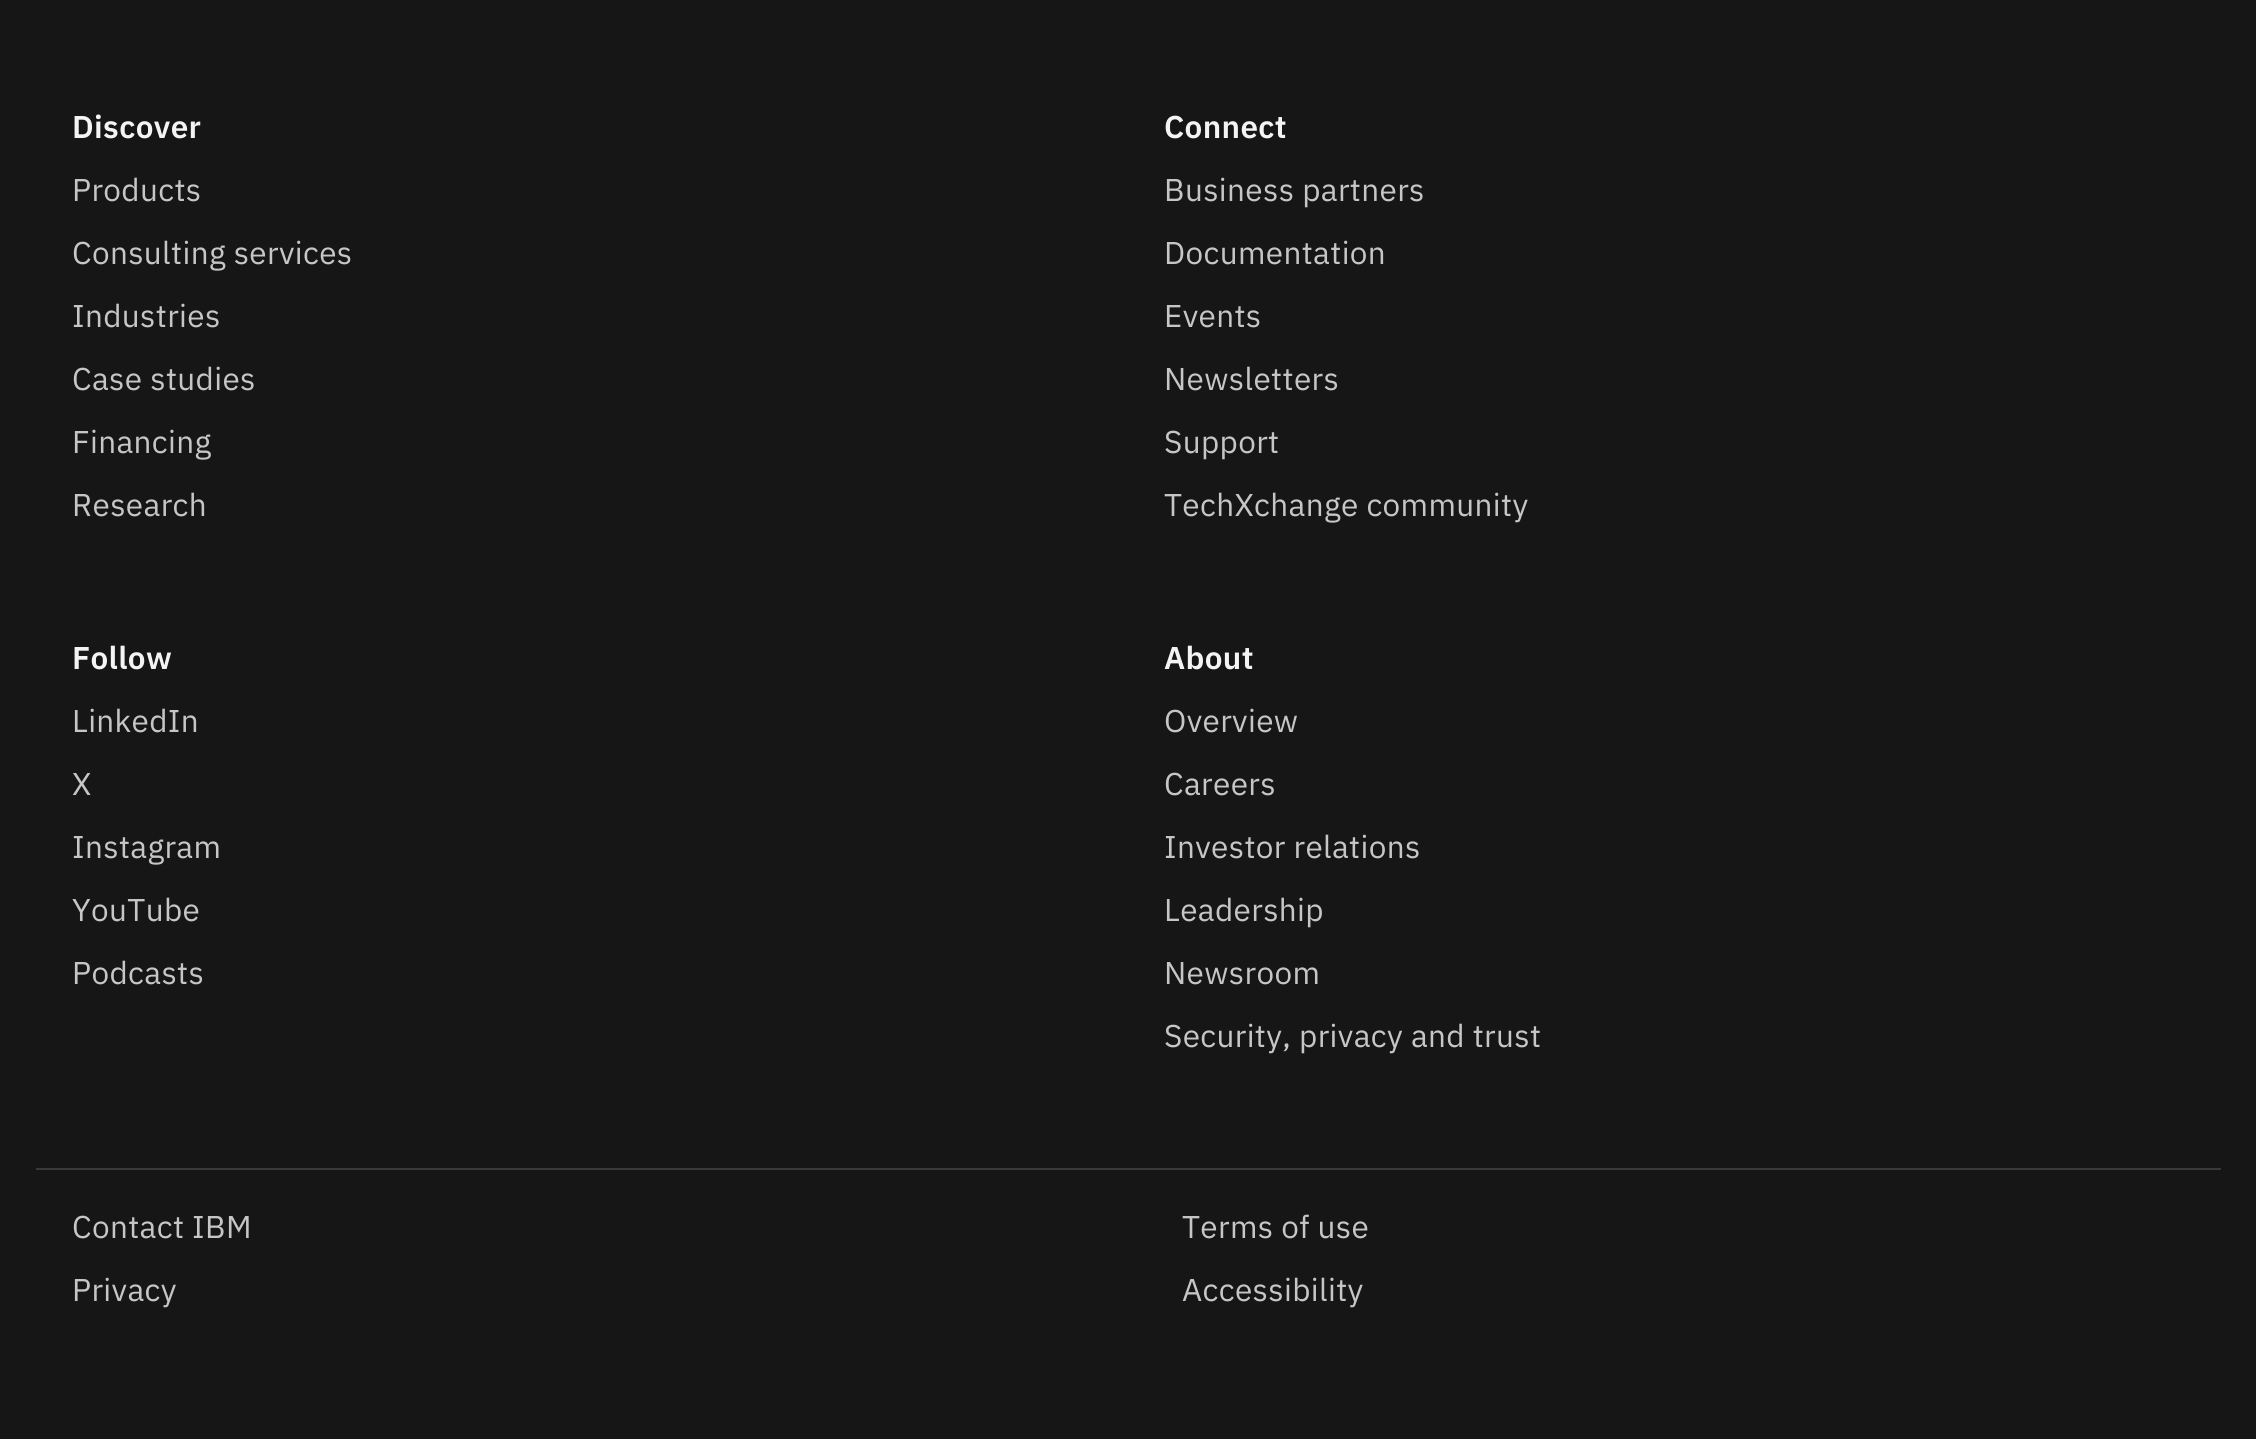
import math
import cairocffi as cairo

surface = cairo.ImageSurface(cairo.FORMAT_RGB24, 2256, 1439)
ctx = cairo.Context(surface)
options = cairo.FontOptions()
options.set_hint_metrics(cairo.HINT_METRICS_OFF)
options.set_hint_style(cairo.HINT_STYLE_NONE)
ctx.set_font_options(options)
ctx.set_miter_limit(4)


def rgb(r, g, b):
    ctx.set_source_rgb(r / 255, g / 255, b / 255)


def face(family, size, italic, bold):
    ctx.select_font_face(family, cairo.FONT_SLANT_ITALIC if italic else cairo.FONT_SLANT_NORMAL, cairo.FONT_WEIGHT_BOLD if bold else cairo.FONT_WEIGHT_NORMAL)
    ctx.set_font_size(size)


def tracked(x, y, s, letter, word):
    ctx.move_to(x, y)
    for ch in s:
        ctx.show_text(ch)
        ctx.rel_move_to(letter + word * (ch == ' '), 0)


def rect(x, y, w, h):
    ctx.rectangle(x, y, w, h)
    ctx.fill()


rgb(22, 22, 22)
ctx.paint()
face('IBM Plex Sans SemiBold', 31.5, 0, 0)
rgb(244, 244, 244)
tracked(72, 138, 'Discover', 0.35, 0)
face('IBM Plex Sans', 31.5, 0, 0)
rgb(198, 198, 198)
tracked(72, 201, 'Products', 0.35, 0)
tracked(72, 264, 'Consulting services', 0.35, 0)
tracked(72, 327, 'Industries', 0.35, 0)
tracked(72, 390, 'Case studies', 0.35, 0)
tracked(72, 453, 'Financing', 0.35, 0)
tracked(72, 516, 'Research', 0.35, 0)
face('IBM Plex Sans SemiBold', 31.5, 0, 0)
rgb(244, 244, 244)
tracked(1164, 138, 'Connect', 0.35, 0)
face('IBM Plex Sans', 31.5, 0, 0)
rgb(198, 198, 198)
tracked(1164, 201, 'Business partners', 0.35, 0)
tracked(1164, 264, 'Documentation', 0.35, 0)
tracked(1164, 327, 'Events', 0.35, 0)
tracked(1164, 390, 'Newsletters', 0.35, 0)
tracked(1164, 453, 'Support', 0.35, 0)
tracked(1164, 516, 'TechXchange community', 0.35, 0)
face('IBM Plex Sans SemiBold', 31.5, 0, 0)
rgb(244, 244, 244)
tracked(72, 669, 'Follow', 0.35, 0)
face('IBM Plex Sans', 31.5, 0, 0)
rgb(198, 198, 198)
tracked(72, 732, 'LinkedIn', 0.35, 0)
tracked(72, 795, 'X', 0.35, 0)
tracked(72, 858, 'Instagram', 0.35, 0)
tracked(72, 921, 'YouTube', 0.35, 0)
tracked(72, 984, 'Podcasts', 0.35, 0)
face('IBM Plex Sans SemiBold', 31.5, 0, 0)
rgb(244, 244, 244)
tracked(1164, 669, 'About', 0.35, 0)
face('IBM Plex Sans', 31.5, 0, 0)
rgb(198, 198, 198)
tracked(1164, 732, 'Overview', 0.35, 0)
tracked(1164, 795, 'Careers', 0.35, 0)
tracked(1164, 858, 'Investor relations', 0.35, 0)
tracked(1164, 921, 'Leadership', 0.35, 0)
tracked(1164, 984, 'Newsroom', 0.35, 0)
tracked(1164, 1047, 'Security, privacy and trust', 0.35, 0)
rgb(57, 57, 57)
rect(36, 1168, 2185, 2)
rgb(198, 198, 198)
tracked(72, 1238, 'Contact IBM', 0.35, 0)
tracked(1182, 1238, 'Terms of use', 0.35, 0)
tracked(72, 1301, 'Privacy', 0.35, 0)
tracked(1182, 1301, 'Accessibility', 0.35, 0)
surface.write_to_png('render.png')
